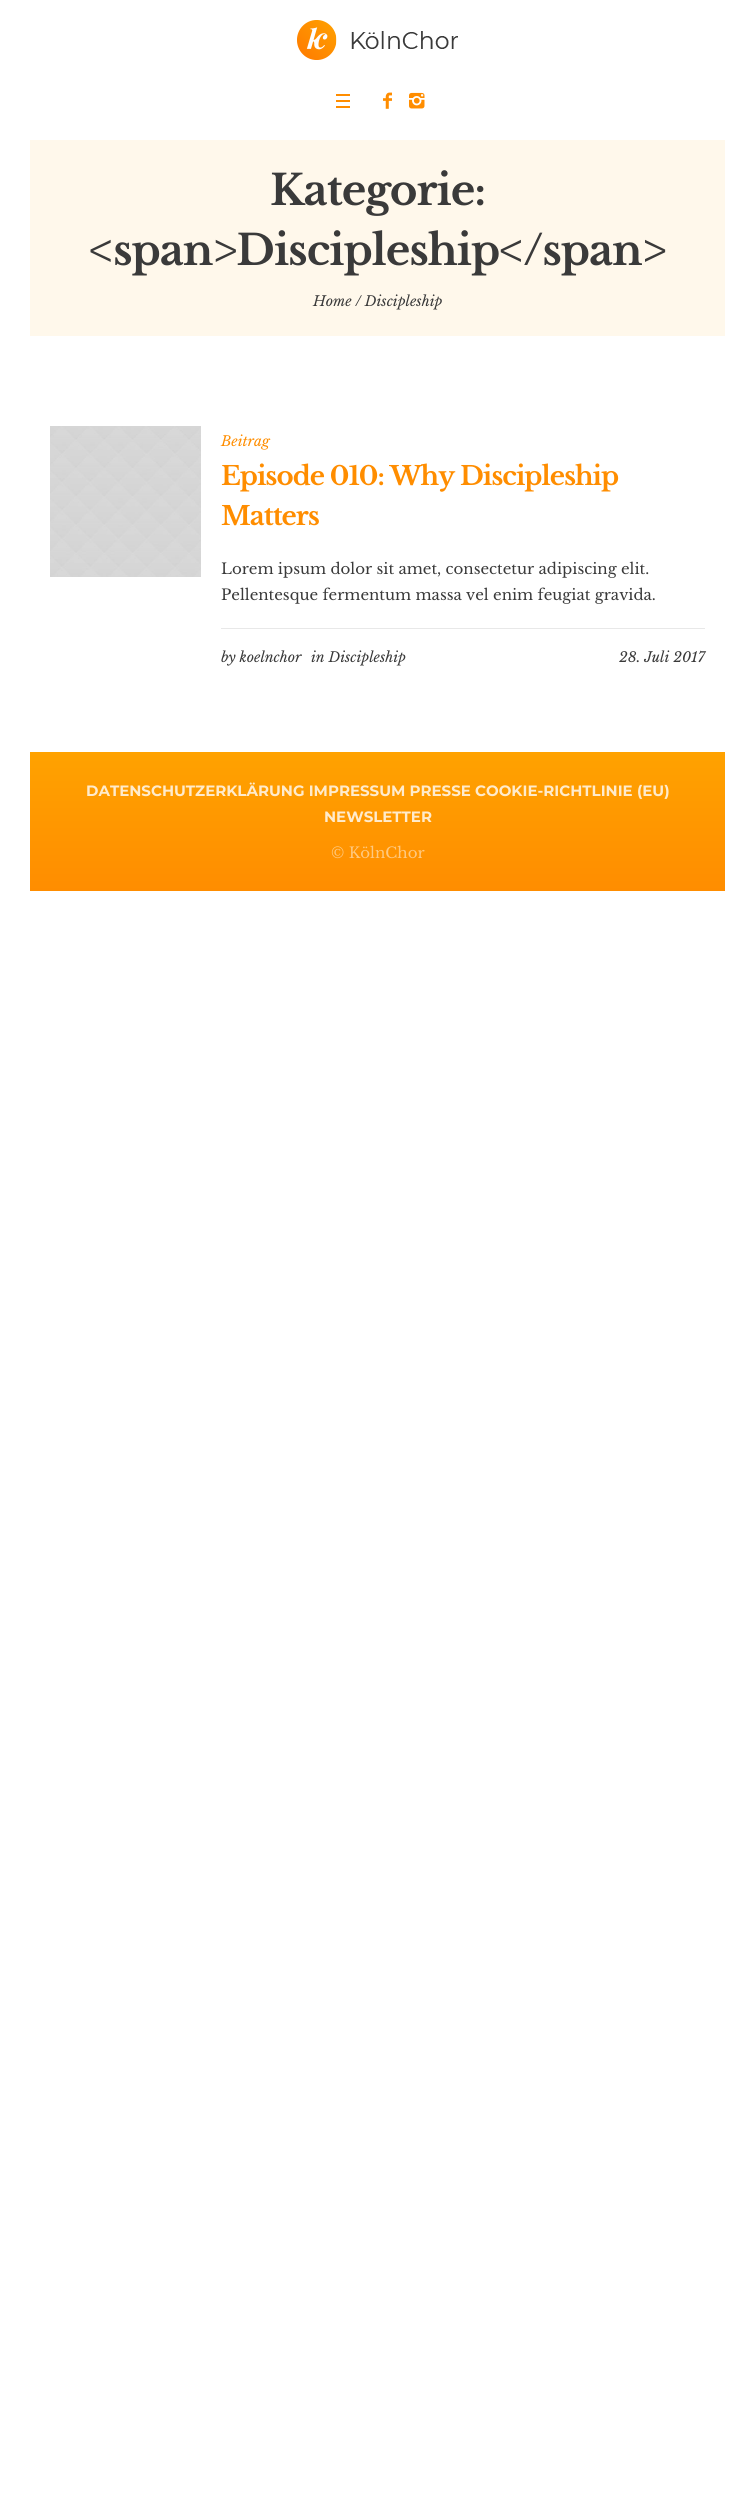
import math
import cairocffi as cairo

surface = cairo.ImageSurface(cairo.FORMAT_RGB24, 755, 2510)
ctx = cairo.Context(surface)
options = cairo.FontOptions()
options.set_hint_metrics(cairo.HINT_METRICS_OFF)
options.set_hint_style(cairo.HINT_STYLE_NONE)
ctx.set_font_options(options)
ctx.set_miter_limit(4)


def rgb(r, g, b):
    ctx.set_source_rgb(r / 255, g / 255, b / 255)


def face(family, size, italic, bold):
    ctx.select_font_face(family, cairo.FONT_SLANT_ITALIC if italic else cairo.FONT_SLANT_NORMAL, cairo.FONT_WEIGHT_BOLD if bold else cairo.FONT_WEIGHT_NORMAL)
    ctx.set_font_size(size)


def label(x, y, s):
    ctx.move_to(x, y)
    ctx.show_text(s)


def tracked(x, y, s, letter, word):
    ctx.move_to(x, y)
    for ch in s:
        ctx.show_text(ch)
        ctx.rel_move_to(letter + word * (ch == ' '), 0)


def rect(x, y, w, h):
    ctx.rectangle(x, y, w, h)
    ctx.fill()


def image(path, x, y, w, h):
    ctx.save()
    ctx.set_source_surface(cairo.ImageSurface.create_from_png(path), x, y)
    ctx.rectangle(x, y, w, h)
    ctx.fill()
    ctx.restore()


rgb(255, 255, 255)
ctx.paint()
image('image0.png', 297, 20, 161, 40)
rgb(255, 141, 0)
rect(336, 94, 14, 2)
rect(336, 100, 14, 2)
rect(336, 106, 14, 2)
image('image1.png', 383, 92, 9, 17)
image('image2.png', 409, 92, 16, 17)
rgb(255, 248, 235)
rect(30, 140, 695, 196)
face('Libre Baskerville', 42, 0, 1)
rgb(58, 58, 58)
tracked(270, 205, 'Kategorie:', -1, 0)
tracked(89, 265, '<span>Discipleship</span>', -1, 0)
face('Libre Baskerville', 14, 1, 0)
label(313, 306, 'Home / Discipleship')
image('image3.png', 50, 426, 151, 151)
rgb(255, 141, 0)
label(221, 446, 'Beitrag')
face('Libre Baskerville', 26, 0, 1)
tracked(221, 485, 'Episode 010: Why Discipleship', -1, 0)
tracked(221, 525, 'Matters', -1, 0)
face('Libre Baskerville', 15, 0, 0)
rgb(58, 58, 58)
label(221, 574, 'Lorem ipsum dolor sit amet, consectetur adipiscing elit.')
label(221, 600, 'Pellentesque fermentum massa vel enim feugiat gravida.')
rgb(232, 232, 232)
rect(221, 628, 484, 1)
face('Libre Baskerville', 14, 1, 0)
rgb(58, 58, 58)
label(221, 662, 'by koelnchor')
label(311, 662, 'in Discipleship')
label(619, 662, '28. Juli 2017')
gradient = cairo.LinearGradient(378, 891, 378, 752)
gradient.add_color_stop_rgba(0, 1, 0.553, 0, 1)
gradient.add_color_stop_rgba(1, 1, 0.635, 0, 1)
ctx.set_source(gradient)
rect(30, 752, 695, 139)
face('Montserrat', 15, 0, 1)
rgb(255, 235, 204)
label(86, 796, 'DATENSCHUTZERKLÄRUNG IMPRESSUM PRESSE COOKIE-RICHTLINIE (EU)')
label(324, 822, 'NEWSLETTER')
face('Libre Baskerville', 15, 0, 0)
rgb(255, 201, 128)
label(331, 858, '© KölnChor')
surface.write_to_png('render.png')
